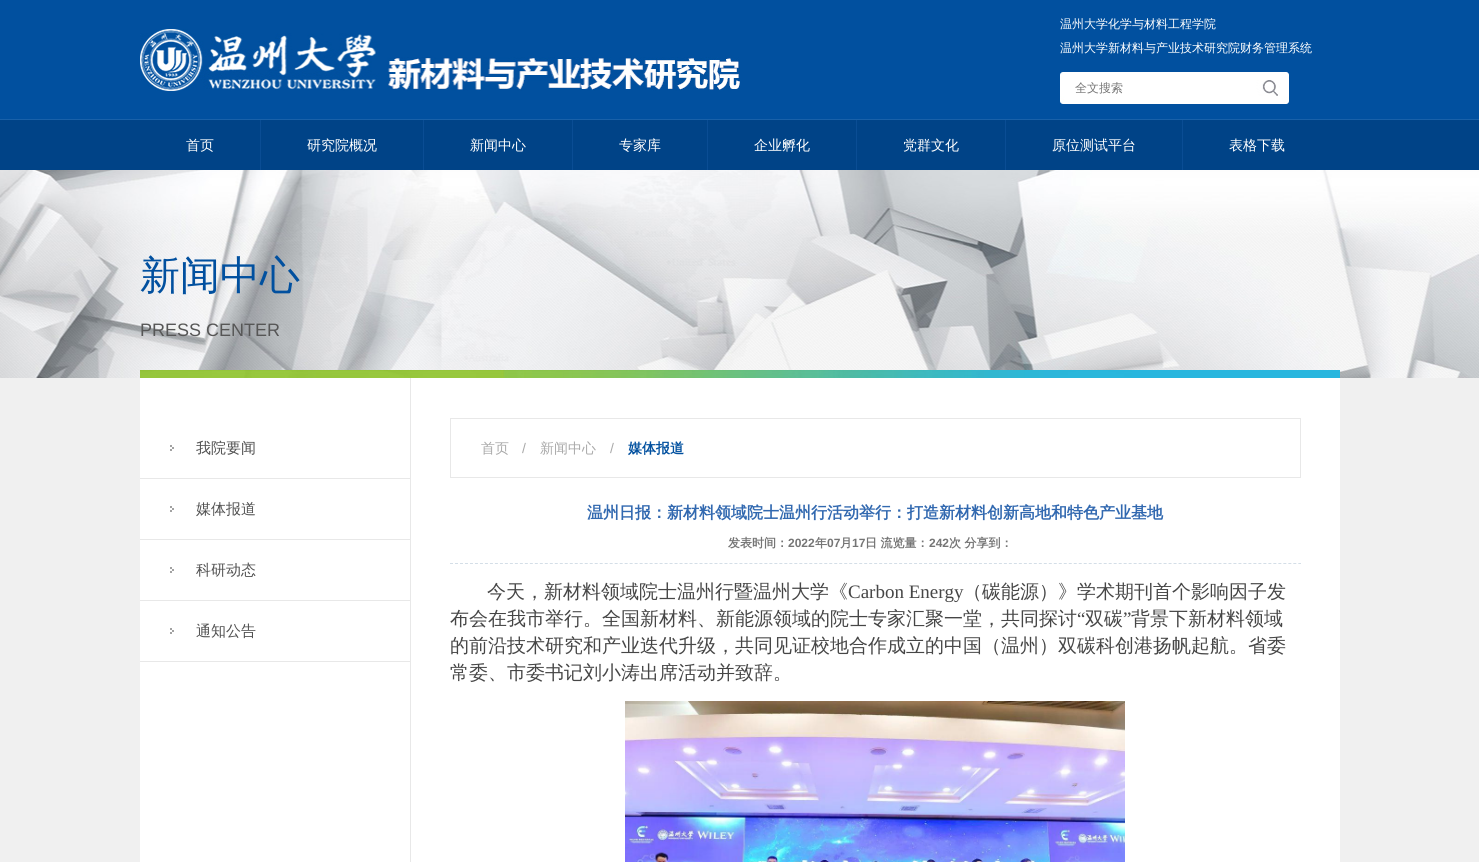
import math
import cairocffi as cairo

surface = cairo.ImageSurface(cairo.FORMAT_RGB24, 1479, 862)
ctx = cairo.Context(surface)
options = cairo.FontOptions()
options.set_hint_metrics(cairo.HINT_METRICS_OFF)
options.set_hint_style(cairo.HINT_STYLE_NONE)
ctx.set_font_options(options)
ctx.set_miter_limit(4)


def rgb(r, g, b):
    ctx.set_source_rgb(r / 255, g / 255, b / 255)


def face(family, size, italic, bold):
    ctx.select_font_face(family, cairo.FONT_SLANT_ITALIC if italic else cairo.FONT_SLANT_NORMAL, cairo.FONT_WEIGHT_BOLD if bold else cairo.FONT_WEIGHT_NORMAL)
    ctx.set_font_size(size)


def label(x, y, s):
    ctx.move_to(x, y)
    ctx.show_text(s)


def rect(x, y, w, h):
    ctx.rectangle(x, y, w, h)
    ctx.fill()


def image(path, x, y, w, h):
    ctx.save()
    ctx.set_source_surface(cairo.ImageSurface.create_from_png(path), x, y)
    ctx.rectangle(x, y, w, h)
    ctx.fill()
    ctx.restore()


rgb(1, 80, 159)
ctx.paint()
image('image0.png', 140, 29, 600, 62)
face('WenQuanYi Zen Hei Medium', 12, 0, 0)
rgb(255, 255, 255)
label(1060, 28, '温州大学化学与材料工程学院')
label(1060, 52, '温州大学新材料与产业技术研究院财务管理系统')
image('image1.png', 1060, 72, 229, 32)
rgb(117, 117, 117)
label(1075, 92, '全文搜索')
rgb(0, 67, 135)
rect(0, 120, 1479, 50)
rgb(25, 97, 169)
rect(0, 119, 1479, 1)
rgb(10, 77, 148)
rect(260, 120, 1, 50)
face('WenQuanYi Zen Hei Medium', 14, 0, 0)
rgb(255, 255, 255)
label(186, 150, '首页')
rgb(10, 77, 148)
rect(423, 120, 1, 50)
rgb(255, 255, 255)
label(307, 150, '研究院概况')
rgb(10, 77, 148)
rect(572, 120, 1, 50)
rgb(255, 255, 255)
label(470, 150, '新闻中心')
rgb(10, 77, 148)
rect(707, 120, 1, 50)
rgb(255, 255, 255)
label(619, 150, '专家库')
rgb(10, 77, 148)
rect(856, 120, 1, 50)
rgb(255, 255, 255)
label(754, 150, '企业孵化')
rgb(10, 77, 148)
rect(1005, 120, 1, 50)
rgb(255, 255, 255)
label(903, 150, '党群文化')
rgb(10, 77, 148)
rect(1182, 120, 1, 50)
rgb(255, 255, 255)
label(1052, 150, '原位测试平台')
label(1229, 150, '表格下载')
rgb(240, 240, 240)
rect(0, 378, 1479, 484)
image('image2.png', 0, 170, 1479, 208)
face('WenQuanYi Zen Hei Medium', 40, 0, 0)
rgb(1, 80, 159)
label(140, 289, '新闻中心')
face('Liberation Sans', 18, 0, 0)
rgb(86, 86, 86)
label(140, 336, 'PRESS CENTER')
rgb(255, 255, 255)
rect(140, 378, 1200, 484)
image('image3.png', 140, 370, 1200, 8)
rgb(232, 232, 232)
rect(140, 478, 270, 1)
image('image4.png', 170, 445, 4, 6)
face('WenQuanYi Zen Hei Medium', 15, 0, 0)
rgb(80, 80, 80)
label(196, 453, '我院要闻')
rgb(232, 232, 232)
rect(140, 539, 270, 1)
image('image4.png', 170, 506, 4, 6)
rgb(80, 80, 80)
label(196, 514, '媒体报道')
rgb(232, 232, 232)
rect(140, 600, 270, 1)
image('image4.png', 170, 567, 4, 6)
rgb(80, 80, 80)
label(196, 575, '科研动态')
rgb(232, 232, 232)
rect(140, 661, 270, 1)
image('image4.png', 170, 628, 4, 6)
rgb(80, 80, 80)
label(196, 636, '通知公告')
rgb(232, 232, 232)
rect(410, 378, 1, 484)
ctx.rectangle(450.5, 418.5, 850, 59)
ctx.set_line_width(1)
ctx.stroke()
face('WenQuanYi Zen Hei Medium', 14, 0, 0)
rgb(169, 169, 169)
label(481, 453, '首页')
face('Liberation Sans', 14, 0, 0)
label(522, 453, '/')
face('WenQuanYi Zen Hei Medium', 14, 0, 0)
label(540, 453, '新闻中心')
face('Liberation Sans', 14, 0, 0)
label(610, 453, '/')
face('WenQuanYi Zen Hei', 14, 0, 1)
rgb(1, 80, 159)
label(628, 453, '媒体报道')
ctx.new_path()
ctx.move_to(450, 563.5)
ctx.line_to(1301, 563.5)
rgb(212, 222, 231)
ctx.set_dash([3, 1.99])
ctx.stroke()
face('WenQuanYi Zen Hei', 16, 0, 1)
rgb(50, 105, 176)
label(587, 518, '温州日报：新材料领域院士温州行活动举行：打造新材料创新高地和特色产业基地')
face('WenQuanYi Zen Hei', 12, 0, 1)
rgb(117, 117, 117)
label(728, 547, '发表时间：')
face('Liberation Sans', 12, 0, 1)
label(788, 547, '2022')
face('WenQuanYi Zen Hei', 12, 0, 1)
label(815, 547, '年')
face('Liberation Sans', 12, 0, 1)
label(827, 547, '07')
face('WenQuanYi Zen Hei', 12, 0, 1)
label(840, 547, '月')
face('Liberation Sans', 12, 0, 1)
label(852, 547, '17')
face('WenQuanYi Zen Hei', 12, 0, 1)
label(865, 547, '日 流览量：')
face('Liberation Sans', 12, 0, 1)
label(929, 547, '242')
face('WenQuanYi Zen Hei', 12, 0, 1)
label(949, 547, '次 分享到：')
face('WenQuanYi Zen Hei Medium', 19, 0, 0)
rgb(70, 70, 70)
label(487, 598, '今天，新材料领域院士温州行暨温州大学《')
face('Liberation Serif', 19, 0, 0)
label(848, 598, 'Carbon Energy')
face('WenQuanYi Zen Hei Medium', 19, 0, 0)
label(963, 598, '（碳能源）》学术期刊首个影响因子发')
label(450, 625, '布会在我市举行。全国新材料、新能源领域的院士专家汇聚一堂，共同探讨')
face('Liberation Serif', 19, 0, 0)
label(1077, 625, '“')
face('WenQuanYi Zen Hei Medium', 19, 0, 0)
label(1085, 625, '双碳')
face('Liberation Serif', 19, 0, 0)
label(1123, 625, '”')
face('WenQuanYi Zen Hei Medium', 19, 0, 0)
label(1131, 625, '背景下新材料领域')
label(450, 652, '的前沿技术研究和产业迭代升级，共同见证校地合作成立的中国（温州）双碳科创港扬帆起航。省委')
label(450, 679, '常委、市委书记刘小涛出席活动并致辞。')
image('image5.png', 625, 701, 500, 161)
surface.write_to_png('render.png')
